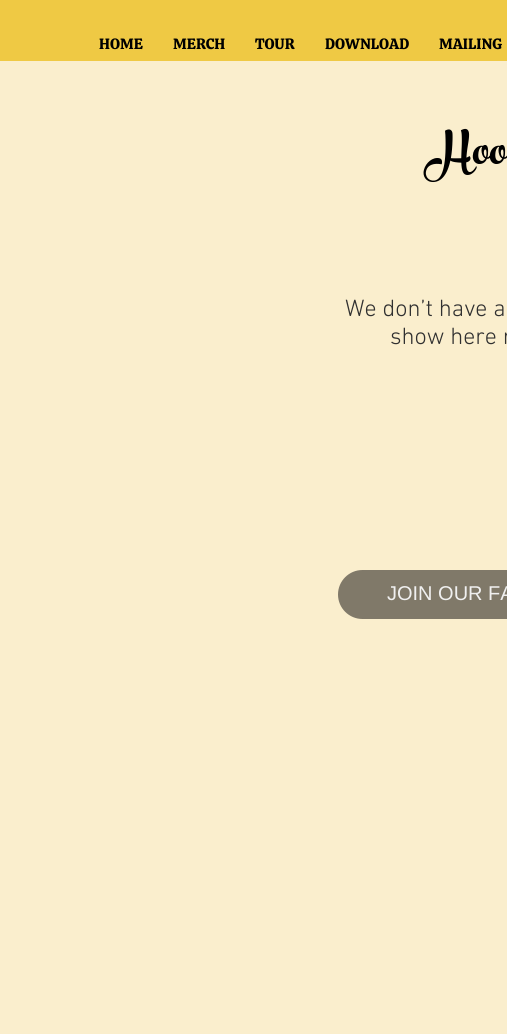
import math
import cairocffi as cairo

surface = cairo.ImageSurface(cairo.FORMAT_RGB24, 507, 1034)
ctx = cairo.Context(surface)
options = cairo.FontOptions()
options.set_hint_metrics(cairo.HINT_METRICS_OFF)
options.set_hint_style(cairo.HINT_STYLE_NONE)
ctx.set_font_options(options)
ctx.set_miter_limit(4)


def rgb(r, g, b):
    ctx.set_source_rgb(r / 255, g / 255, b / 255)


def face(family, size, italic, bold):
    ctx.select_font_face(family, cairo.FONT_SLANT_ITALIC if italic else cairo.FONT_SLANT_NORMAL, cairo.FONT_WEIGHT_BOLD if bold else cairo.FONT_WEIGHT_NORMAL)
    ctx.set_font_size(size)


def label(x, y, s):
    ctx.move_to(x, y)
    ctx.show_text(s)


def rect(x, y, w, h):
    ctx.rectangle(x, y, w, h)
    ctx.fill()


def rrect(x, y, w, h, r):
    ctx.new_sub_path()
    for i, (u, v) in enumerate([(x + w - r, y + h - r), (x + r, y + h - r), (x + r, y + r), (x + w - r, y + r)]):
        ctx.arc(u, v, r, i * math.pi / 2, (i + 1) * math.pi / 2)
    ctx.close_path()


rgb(250, 238, 205)
ctx.paint()
rgb(239, 201, 68)
rect(0, 0, 507, 61)
face('Calistoga', 15, 0, 0)
rgb(0, 0, 0)
label(99, 49, 'HOME')
label(173, 49, 'MERCH')
label(255, 49, 'TOUR')
label(325, 49, 'DOWNLOAD')
label(439, 49, 'MAILING')
face('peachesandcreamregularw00', 73, 0, 0)
label(427, 164, 'Hoo')
face('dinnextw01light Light', 24, 0, 0)
rgb(48, 48, 48)
label(345, 316, 'We don’t have a')
label(390, 344, 'show here r')
rgb(128, 121, 105)
rrect(338, 570, 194, 49, 24.5)
ctx.fill()
face('Liberation Sans', 20, 0, 0)
rgb(240, 240, 240)
label(387, 600, 'JOIN OUR FA')
surface.write_to_png('render.png')
